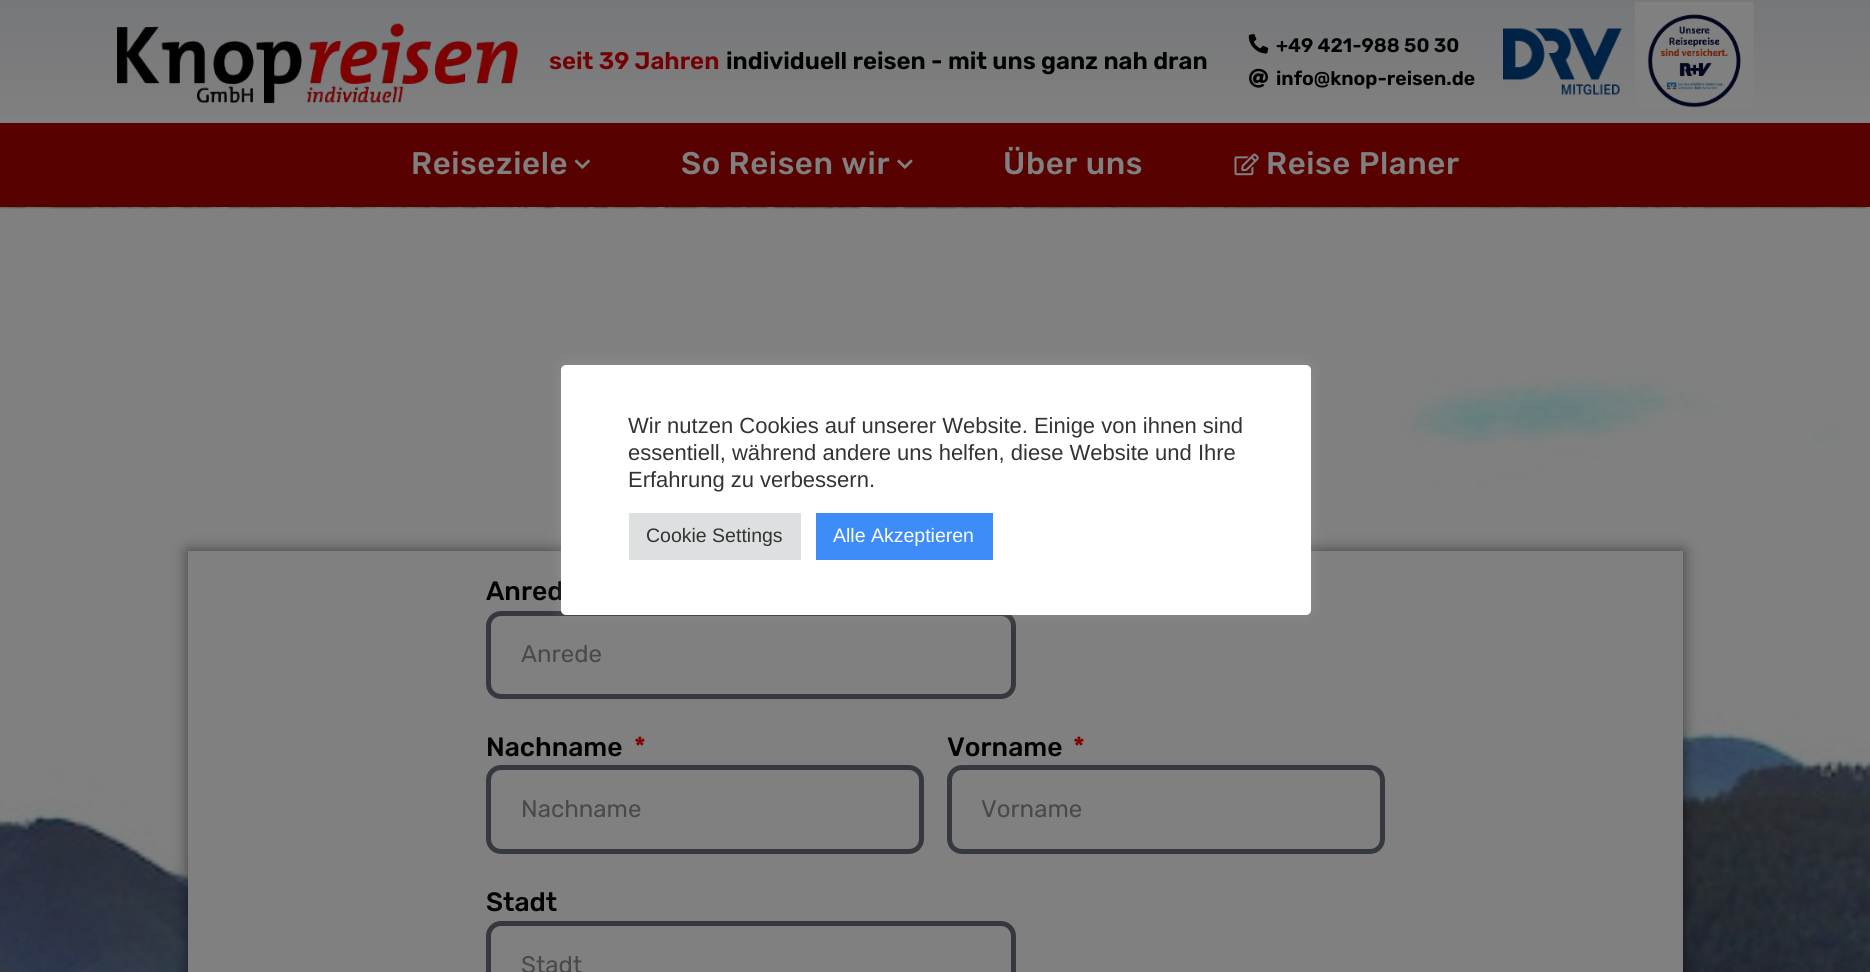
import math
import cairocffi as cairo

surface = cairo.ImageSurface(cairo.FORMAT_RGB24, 1870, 972)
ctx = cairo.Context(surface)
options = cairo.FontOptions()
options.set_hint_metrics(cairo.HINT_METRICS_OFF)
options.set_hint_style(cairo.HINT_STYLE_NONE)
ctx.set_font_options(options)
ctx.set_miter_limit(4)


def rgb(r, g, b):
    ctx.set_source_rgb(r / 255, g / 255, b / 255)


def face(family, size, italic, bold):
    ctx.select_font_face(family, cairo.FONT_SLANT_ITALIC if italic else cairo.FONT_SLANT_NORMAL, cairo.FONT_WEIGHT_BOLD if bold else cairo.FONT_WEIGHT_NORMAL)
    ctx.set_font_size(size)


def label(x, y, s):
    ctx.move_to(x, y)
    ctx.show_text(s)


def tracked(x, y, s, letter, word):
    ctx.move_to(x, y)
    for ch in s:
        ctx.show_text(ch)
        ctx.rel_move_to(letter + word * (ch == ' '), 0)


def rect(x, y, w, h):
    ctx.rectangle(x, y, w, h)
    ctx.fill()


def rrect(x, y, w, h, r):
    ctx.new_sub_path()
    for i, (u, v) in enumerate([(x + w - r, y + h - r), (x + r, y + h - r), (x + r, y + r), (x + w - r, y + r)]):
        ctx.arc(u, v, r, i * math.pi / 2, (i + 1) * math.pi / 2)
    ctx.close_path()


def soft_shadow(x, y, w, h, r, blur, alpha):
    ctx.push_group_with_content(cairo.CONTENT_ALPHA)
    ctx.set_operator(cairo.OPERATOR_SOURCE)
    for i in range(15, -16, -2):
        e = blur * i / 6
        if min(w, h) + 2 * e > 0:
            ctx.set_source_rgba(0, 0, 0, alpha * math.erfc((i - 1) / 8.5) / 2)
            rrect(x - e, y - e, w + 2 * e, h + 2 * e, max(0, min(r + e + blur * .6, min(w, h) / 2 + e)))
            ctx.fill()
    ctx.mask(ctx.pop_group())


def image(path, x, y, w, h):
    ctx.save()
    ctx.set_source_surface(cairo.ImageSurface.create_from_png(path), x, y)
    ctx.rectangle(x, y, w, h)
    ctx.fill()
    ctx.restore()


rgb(255, 255, 255)
ctx.paint()
gradient = cairo.LinearGradient(935, 0, 935, 123)
gradient.add_color_stop_rgba(0, 0.463, 0.467, 0.475, 1)
gradient.add_color_stop_rgba(1, 0.502, 0.502, 0.502, 1)
ctx.set_source(gradient)
rect(0, 0, 1870, 123)
image('image0.png', 116, 23, 402, 81)
face('Rubik SemiBold', 24, 0, 0)
rgb(115, 1, 3)
label(549, 69, 'seit 39 Jahren')
rgb(0, 1, 1)
label(726, 69, 'individuell reisen - mit uns ganz nah dran')
image('image1.png', 1248, 34, 21, 20)
face('Rubik SemiBold', 19.5, 0, 0)
label(1276, 52, '+49 421-988 50 30')
image('image2.png', 1249, 68, 19, 20)
label(1276, 85, 'info@knop-reisen.de')
image('image3.png', 1503, 28, 119, 67)
image('image4.png', 1635, 1, 119, 107)
rgb(88, 1, 1)
rect(0, 123, 1870, 84)
face('Rubik Medium', 31.25, 0, 0)
rgb(128, 128, 128)
tracked(411, 174, 'Reiseziele', 0.6, 0)
image('image5.png', 574, 159, 16, 10)
tracked(681, 174, 'So Reisen wir', 0.6, 0)
image('image6.png', 897, 159, 16, 10)
tracked(1003, 174, 'Über uns', 0.6, 0)
image('image7.png', 1234, 153, 25, 23)
tracked(1266, 174, 'Reise Planer', 0.6, 0)
image('image8.png', 0, 207, 1870, 765)
rgb(0, 0, 0)
soft_shadow(188, 551, 1495, 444, 0, 7.5, 0.5)
rgb(128, 128, 128)
rect(188, 551, 1495, 421)
face('Rubik Medium', 26.5, 0, 0)
rgb(0, 1, 1)
label(486, 600, 'Anred')
rrect(488.5, 613.5, 525, 83, 12.5)
rgb(53, 57, 63)
ctx.set_line_width(5)
ctx.stroke()
face('Rubik', 24, 0, 0)
rgb(73, 73, 73)
label(521, 662, 'Anrede')
face('Rubik Medium', 26.5, 0, 0)
rgb(0, 1, 1)
label(486, 756, 'Nachname')
rgb(128, 0, 0)
label(634, 756, '*')
rrect(488.5, 767.5, 433, 84, 12.5)
rgb(53, 57, 63)
ctx.stroke()
face('Rubik', 24, 0, 0)
rgb(73, 73, 73)
label(521, 817, 'Nachname')
face('Rubik Medium', 26.5, 0, 0)
rgb(0, 1, 1)
label(947, 756, 'Vorname')
rgb(128, 0, 0)
label(1073, 756, '*')
rrect(949.5, 767.5, 433, 84, 12.5)
rgb(53, 57, 63)
ctx.stroke()
face('Rubik', 24, 0, 0)
rgb(73, 73, 73)
label(981, 817, 'Vorname')
face('Rubik Medium', 26.5, 0, 0)
rgb(0, 1, 1)
label(486, 911, 'Stadt')
rrect(488.5, 923.5, 525, 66, 12.5)
rgb(53, 57, 63)
ctx.stroke()
face('Rubik', 24, 0, 0)
rgb(73, 73, 73)
label(521, 973, 'Stadt')
rgb(172, 171, 171)
soft_shadow(561, 363, 750, 251, 5, 7.5, 0.3)
rgb(255, 255, 255)
rrect(561, 365, 750, 250, 5)
ctx.fill()
face('Liberation Sans', 22, 0, 0)
rgb(51, 51, 51)
label(628, 433, 'Wir nutzen Cookies auf unserer Website. Einige von ihnen sind')
label(628, 460, 'essentiell, während andere uns helfen, diese Website und Ihre')
label(628, 487, 'Erfahrung zu verbessern.')
rgb(222, 223, 224)
rect(629, 513, 172, 47)
face('Liberation Sans', 19.5, 0, 0)
rgb(51, 51, 51)
label(646, 542, 'Cookie Settings')
rgb(62, 140, 249)
rect(816, 513, 177, 47)
rgb(255, 255, 255)
label(833, 542, 'Alle Akzeptieren')
surface.write_to_png('render.png')
